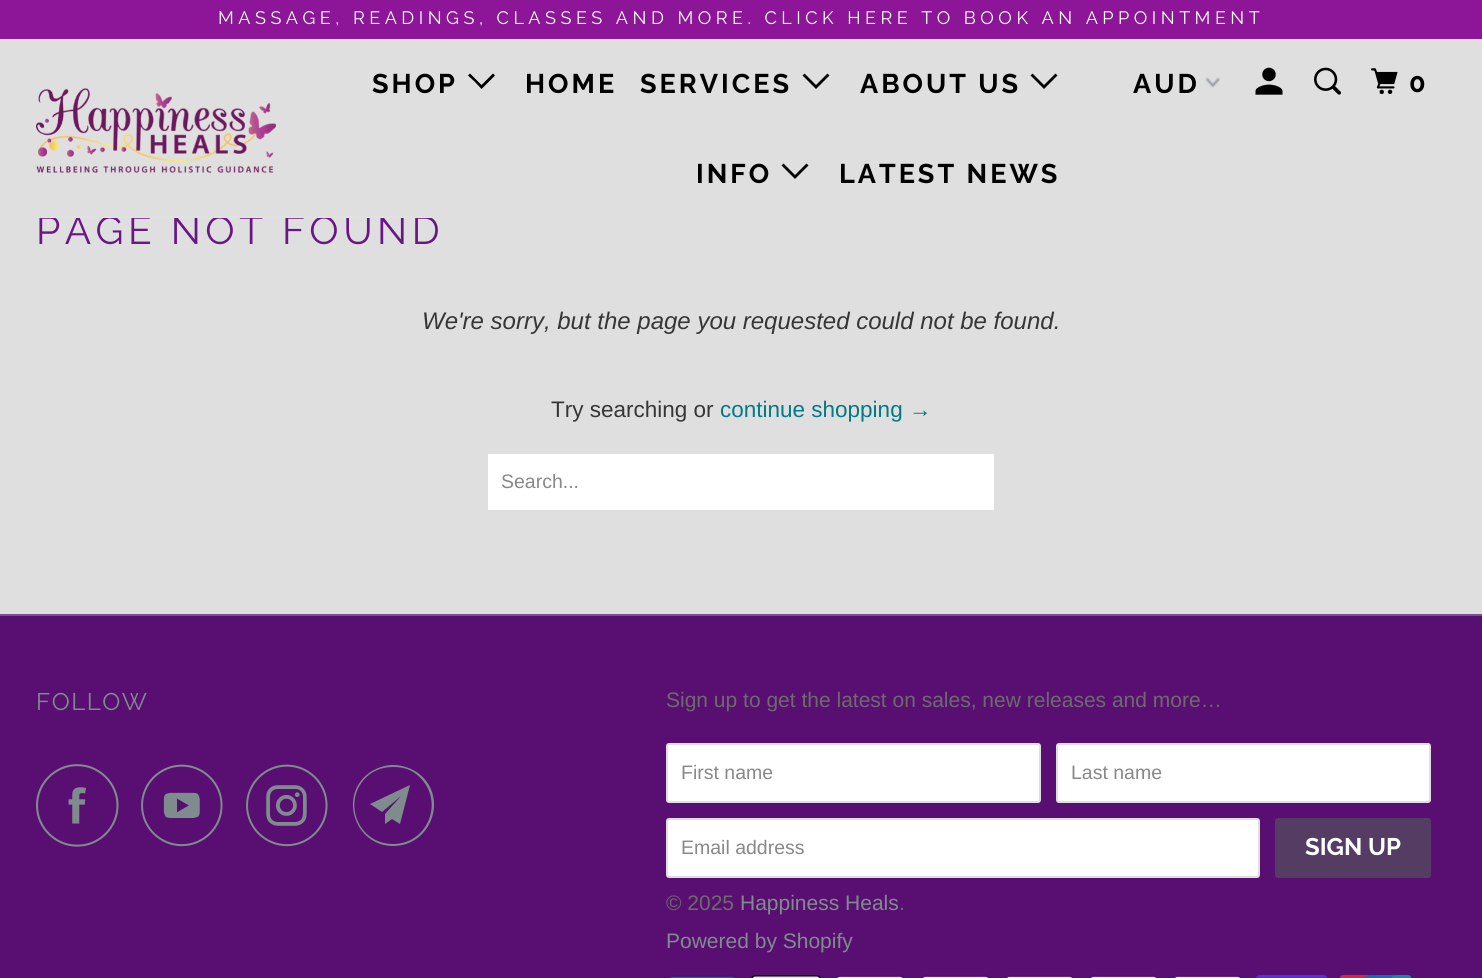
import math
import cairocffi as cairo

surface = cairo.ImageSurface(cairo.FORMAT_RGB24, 1482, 978)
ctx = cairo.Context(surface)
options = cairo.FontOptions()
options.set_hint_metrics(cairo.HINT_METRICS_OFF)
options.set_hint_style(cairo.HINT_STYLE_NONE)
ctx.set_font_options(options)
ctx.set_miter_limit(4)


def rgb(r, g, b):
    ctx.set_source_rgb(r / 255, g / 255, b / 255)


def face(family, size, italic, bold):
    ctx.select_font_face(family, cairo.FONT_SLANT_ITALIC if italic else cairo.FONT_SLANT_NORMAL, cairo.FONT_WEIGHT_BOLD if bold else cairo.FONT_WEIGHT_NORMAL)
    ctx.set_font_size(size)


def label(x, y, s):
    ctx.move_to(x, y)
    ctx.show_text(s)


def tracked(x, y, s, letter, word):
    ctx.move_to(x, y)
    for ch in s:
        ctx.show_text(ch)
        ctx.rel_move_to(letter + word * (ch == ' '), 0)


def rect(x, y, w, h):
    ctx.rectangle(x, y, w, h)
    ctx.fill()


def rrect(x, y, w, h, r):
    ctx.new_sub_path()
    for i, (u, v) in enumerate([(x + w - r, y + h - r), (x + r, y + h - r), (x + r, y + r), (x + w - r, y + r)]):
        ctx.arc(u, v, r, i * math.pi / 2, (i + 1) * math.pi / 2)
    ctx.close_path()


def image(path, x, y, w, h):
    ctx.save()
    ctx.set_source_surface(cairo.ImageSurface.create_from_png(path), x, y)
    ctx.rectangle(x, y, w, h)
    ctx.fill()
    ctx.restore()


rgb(223, 223, 223)
ctx.paint()
rgb(141, 22, 152)
rect(0, 0, 1482, 39)
face('Raleway', 18, 0, 0)
rgb(255, 255, 255)
tracked(218, 24, 'MASSAGE, READINGS, CLASSES AND MORE. CLICK HERE TO BOOK AN APPOINTMENT', 4.5, 0)
face('Raleway', 39, 0, 0)
rgb(106, 23, 134)
tracked(36, 244, 'PAGE NOT FOUND', 4.5, 0)
rgb(225, 225, 225)
rect(39, 216, 393, 2)
image('image0.png', 36, 88, 240, 85)
face('Raleway', 27, 0, 1)
rgb(0, 0, 0)
tracked(372, 93, 'SHOP', 3, 0)
ctx.new_path()
ctx.move_to(475, 82)
ctx.line_to(468, 75.5)
ctx.line_to(470, 73.5)
ctx.line_to(481.5, 85)
ctx.line_to(493, 73.5)
ctx.line_to(495, 75.5)
ctx.line_to(481.5, 89)
ctx.close_path()
ctx.fill()
tracked(525, 93, 'HOME', 3, 0)
tracked(640, 93, 'SERVICES', 3, 0)
ctx.new_path()
ctx.move_to(809, 82)
ctx.line_to(802.5, 75.5)
ctx.line_to(804.5, 73.5)
ctx.line_to(816, 85)
ctx.line_to(827.5, 73.5)
ctx.line_to(829.5, 75.5)
ctx.line_to(816, 89)
ctx.close_path()
ctx.fill()
tracked(860, 93, 'ABOUT US', 3, 0)
ctx.new_path()
ctx.move_to(1037, 82)
ctx.line_to(1030.5, 75.5)
ctx.line_to(1032.5, 73.5)
ctx.line_to(1044, 85)
ctx.line_to(1055.5, 73.5)
ctx.line_to(1057.5, 75.5)
ctx.line_to(1044, 89)
ctx.close_path()
ctx.fill()
tracked(696, 183, 'INFO', 3, 0)
ctx.new_path()
ctx.move_to(788, 172)
ctx.line_to(781.5, 165.5)
ctx.line_to(783.5, 163.5)
ctx.line_to(795, 175)
ctx.line_to(806.5, 163.5)
ctx.line_to(808.5, 165.5)
ctx.line_to(795, 179)
ctx.close_path()
ctx.fill()
tracked(839, 183, 'LATEST NEWS', 3, 0)
image('image1.png', 1205, 77, 15, 11)
tracked(1133, 93, 'AUD', 3, 0)
image('image2.png', 1255, 67, 28, 28)
image('image3.png', 1314, 67, 27, 28)
image('image4.png', 1371, 68, 27, 27)
tracked(1409, 92, '0', 3, 0)
face('Liberation Sans', 24, 1, 0)
rgb(54, 54, 54)
label(422, 329, 'We\'re sorry, but the page you requested could not be found.')
face('Liberation Sans', 22.5, 0, 0)
label(551, 417, 'Try searching or')
rgb(0, 122, 135)
label(720, 417, 'continue shopping →')
rgb(255, 255, 255)
rrect(487, 453, 508, 58, 2)
ctx.fill_preserve()
rgb(223, 223, 223)
ctx.stroke()
face('Liberation Sans', 19.5, 0, 0)
rgb(136, 136, 136)
label(501, 488, 'Search...')
rgb(88, 15, 113)
rect(0, 616, 1482, 362)
rgb(117, 81, 142)
rect(0, 614, 1482, 2)
face('Raleway', 24, 0, 0)
rgb(127, 140, 141)
tracked(36, 710, 'FOLLOW', 1.5, 0)
image('image5.png', 36, 764, 83, 83)
image('image6.png', 141, 764, 82, 83)
image('image7.png', 246, 764, 82, 83)
ctx.new_path()
ctx.move_to(400, 824)
ctx.line_to(392, 819)
ctx.line_to(385, 824)
ctx.line_to(385, 814)
ctx.line_to(401, 796)
ctx.line_to(382, 812)
ctx.line_to(370, 804)
ctx.line_to(410, 785)
ctx.close_path()
ctx.move_to(393, 767)
ctx.curve_to(385, 767, 377, 769, 370, 774)
ctx.curve_to(340, 797, 356, 844, 393, 844)
ctx.curve_to(430, 844, 446, 797, 416, 774)
ctx.curve_to(410, 769, 402, 767, 393, 767)
ctx.close_path()
ctx.move_to(393, 846)
ctx.curve_to(355, 846, 338, 796, 369, 773)
ctx.curve_to(376, 768, 385, 765, 393, 765)
ctx.curve_to(402, 765, 411, 768, 418, 773)
ctx.curve_to(449, 796, 432, 846, 393, 846)
ctx.close_path()
ctx.fill()
face('Liberation Sans', 21, 0, 0)
rgb(107, 107, 107)
label(666, 707, 'Sign up to get the latest on sales, new releases and more…')
rgb(255, 255, 255)
rrect(667, 744, 373, 58, 2)
ctx.fill_preserve()
rgb(223, 223, 223)
ctx.stroke()
face('Liberation Sans', 19.5, 0, 0)
rgb(136, 136, 136)
label(681, 779, 'First name')
rgb(255, 255, 255)
rrect(1057, 744, 373, 58, 2)
ctx.fill_preserve()
rgb(223, 223, 223)
ctx.stroke()
rgb(136, 136, 136)
label(1071, 779, 'Last name')
rgb(255, 255, 255)
rrect(667, 819, 592, 58, 2)
ctx.fill_preserve()
rgb(223, 223, 223)
ctx.stroke()
rgb(136, 136, 136)
label(681, 854, 'Email address')
rgb(84, 60, 99)
rrect(1275, 818, 156, 60, 3)
ctx.fill()
face('Raleway', 24, 0, 1)
rgb(255, 255, 255)
label(1305, 855, 'SIGN UP')
face('Liberation Sans', 21, 0, 0)
rgb(107, 107, 107)
label(666, 910, '© 2025')
rgb(127, 140, 141)
label(740, 910, 'Happiness Heals')
rgb(107, 107, 107)
label(899, 910, '.')
rgb(127, 140, 141)
label(666, 948, 'Powered by Shopify')
image('image8.png', 667, 975, 70, 3)
image('image9.png', 751, 975, 70, 3)
image('image10.png', 835, 975, 70, 3)
image('image11.png', 921, 975, 69, 3)
image('image11.png', 1005, 975, 69, 3)
image('image11.png', 1089, 975, 69, 3)
image('image11.png', 1173, 975, 69, 3)
image('image12.png', 1256, 975, 71, 3)
image('image13.png', 1340, 975, 72, 3)
surface.write_to_png('render.png')
